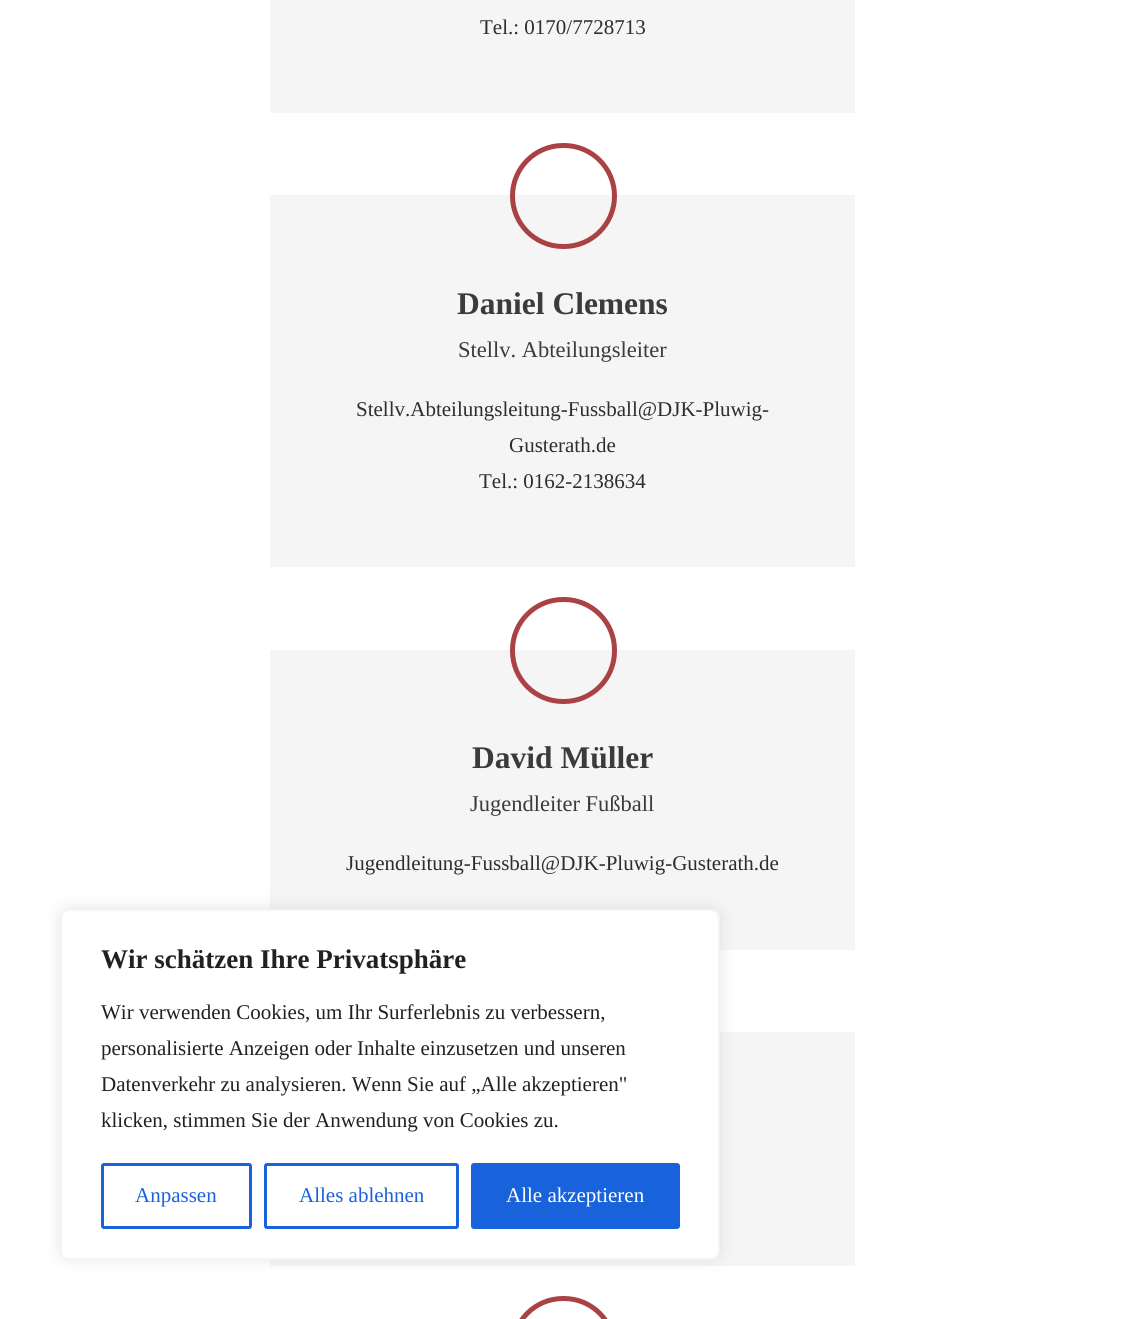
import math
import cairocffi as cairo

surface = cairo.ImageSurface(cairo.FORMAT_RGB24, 1125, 1319)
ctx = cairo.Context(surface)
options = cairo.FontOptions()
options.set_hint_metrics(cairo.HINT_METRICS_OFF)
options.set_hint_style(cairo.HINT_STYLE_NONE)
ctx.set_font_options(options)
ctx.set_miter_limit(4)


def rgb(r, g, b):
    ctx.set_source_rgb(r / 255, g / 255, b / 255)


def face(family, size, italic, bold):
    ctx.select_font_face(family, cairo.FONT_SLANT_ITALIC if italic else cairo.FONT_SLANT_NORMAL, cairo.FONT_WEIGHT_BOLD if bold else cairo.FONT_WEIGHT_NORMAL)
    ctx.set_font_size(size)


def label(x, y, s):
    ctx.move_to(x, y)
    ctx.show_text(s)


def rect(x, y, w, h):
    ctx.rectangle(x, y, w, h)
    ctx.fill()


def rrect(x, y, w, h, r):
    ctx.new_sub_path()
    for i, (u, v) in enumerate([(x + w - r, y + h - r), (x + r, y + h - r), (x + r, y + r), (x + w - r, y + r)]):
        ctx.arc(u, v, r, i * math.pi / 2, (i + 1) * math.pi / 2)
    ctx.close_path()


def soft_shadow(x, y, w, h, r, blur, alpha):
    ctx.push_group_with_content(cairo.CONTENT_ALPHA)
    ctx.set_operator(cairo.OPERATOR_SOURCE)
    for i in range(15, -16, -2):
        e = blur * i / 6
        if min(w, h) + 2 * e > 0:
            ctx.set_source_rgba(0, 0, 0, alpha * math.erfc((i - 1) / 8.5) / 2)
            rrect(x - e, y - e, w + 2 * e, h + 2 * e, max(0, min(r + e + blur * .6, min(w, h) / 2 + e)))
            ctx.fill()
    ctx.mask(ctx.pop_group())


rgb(255, 255, 255)
ctx.paint()
rgb(245, 245, 245)
rect(270, 0, 585, 113)
face('Liberation Serif', 21, 0, 0)
rgb(45, 45, 45)
label(480, 34, 'Tel.: 0170/7728713')
rgb(245, 245, 245)
rect(270, 195, 585, 372)
rrect(512.5, 145.5, 102, 101, 50.5)
rgb(170, 66, 67)
ctx.set_line_width(5)
ctx.stroke()
face('Liberation Serif', 31.5, 0, 1)
rgb(59, 59, 59)
label(457, 314, 'Daniel Clemens')
face('Liberation Serif', 22.5, 0, 0)
label(458, 357, 'Stellv. Abteilungsleiter')
face('Liberation Serif', 21, 0, 0)
rgb(45, 45, 45)
label(356, 416, 'Stellv.Abteilungsleitung-Fussball@DJK-Pluwig-')
label(509, 452, 'Gusterath.de')
label(479, 488, 'Tel.: 0162-2138634')
rgb(245, 245, 245)
rect(270, 650, 585, 300)
rrect(512.5, 599.5, 102, 102, 50.5)
rgb(170, 66, 67)
ctx.stroke()
face('Liberation Serif', 31.5, 0, 1)
rgb(59, 59, 59)
label(472, 768, 'David Müller')
face('Liberation Serif', 22.5, 0, 0)
label(470, 811, 'Jugendleiter Fußball')
face('Liberation Serif', 21, 0, 0)
rgb(45, 45, 45)
label(346, 870, 'Jugendleitung-Fussball@DJK-Pluwig-Gusterath.de')
rgb(245, 245, 245)
rect(270, 1032, 585, 234)
rrect(512.5, 1298.5, 102, 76, 50.5)
rgb(170, 66, 67)
ctx.stroke()
rgb(172, 171, 171)
soft_shadow(60, 908, 660, 351, 9, 7.5, 0.3)
rgb(255, 255, 255)
rrect(61, 910, 658, 349, 8)
ctx.fill_preserve()
rgb(244, 244, 244)
ctx.set_line_width(2)
ctx.stroke()
face('Liberation Serif', 27, 0, 1)
rgb(33, 33, 33)
label(101, 968, 'Wir schätzen Ihre Privatsphäre')
face('Liberation Serif', 21, 0, 0)
label(101, 1019, 'Wir verwenden Cookies, um Ihr Surferlebnis zu verbessern,')
label(101, 1055, 'personalisierte Anzeigen oder Inhalte einzusetzen und unseren')
label(101, 1091, 'Datenverkehr zu analysieren. Wenn Sie auf „Alle akzeptieren"')
label(101, 1127, 'klicken, stimmen Sie der Anwendung von Cookies zu.')
rrect(102.5, 1164.5, 148, 63, 1.5)
rgb(24, 99, 220)
ctx.set_line_width(3)
ctx.stroke()
label(135, 1202, 'Anpassen')
rrect(265.5, 1164.5, 192, 63, 1.5)
ctx.stroke()
label(299, 1202, 'Alles ablehnen')
rrect(472.5, 1164.5, 206, 63, 1.5)
ctx.fill_preserve()
ctx.stroke()
rgb(255, 255, 255)
label(506, 1202, 'Alle akzeptieren')
surface.write_to_png('render.png')
